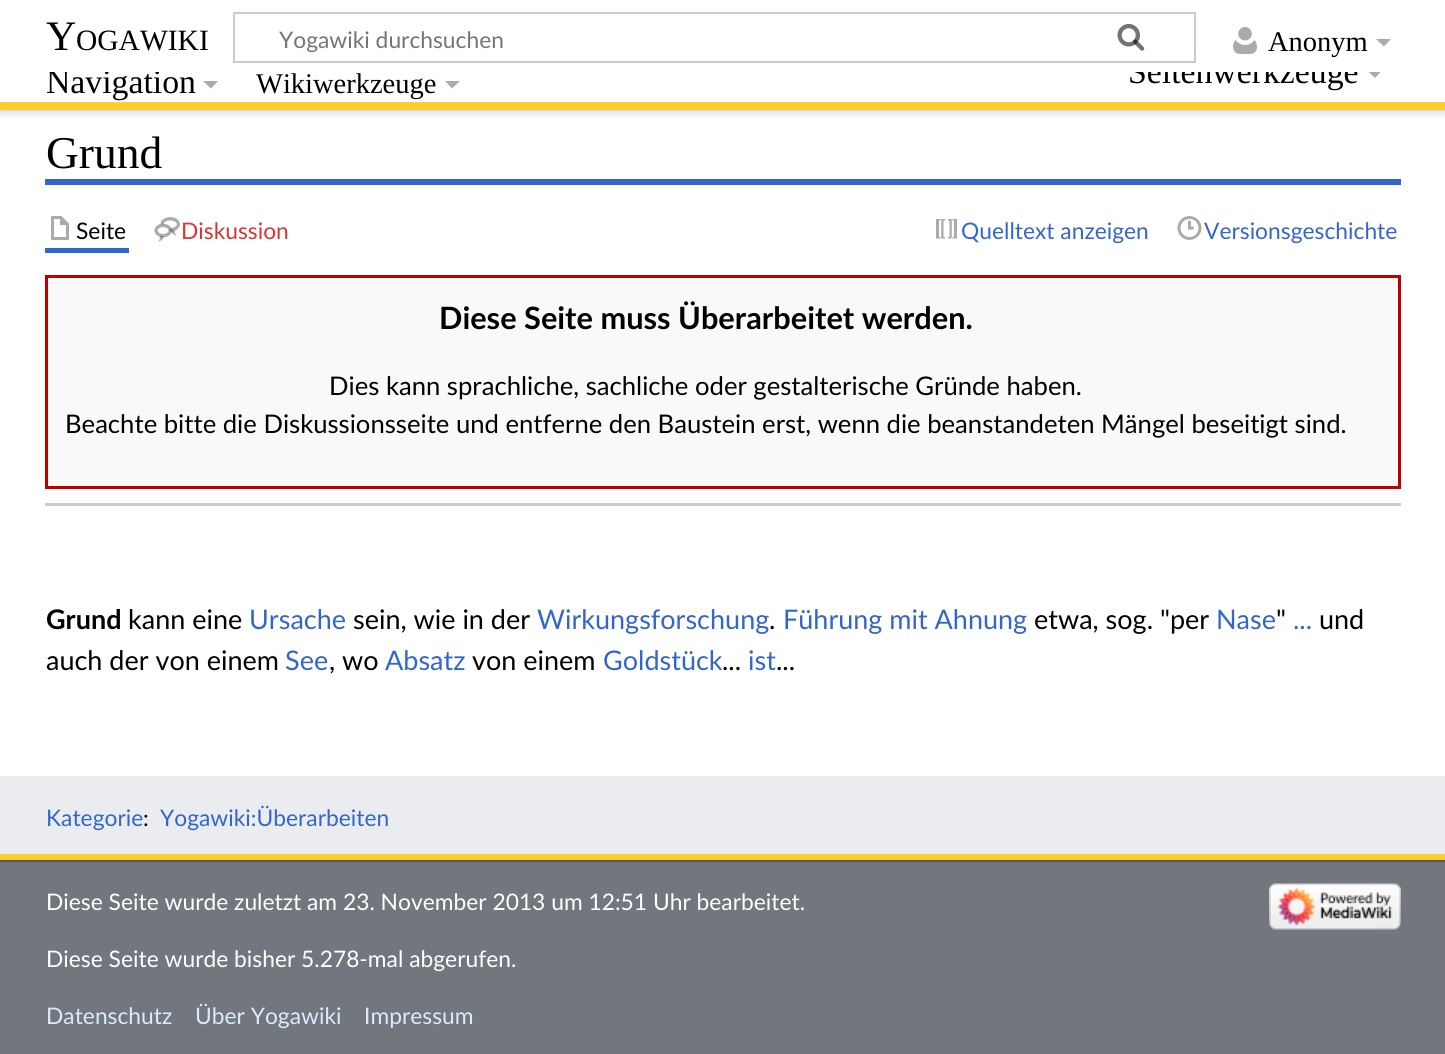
import math
import cairocffi as cairo

surface = cairo.ImageSurface(cairo.FORMAT_RGB24, 1445, 1054)
ctx = cairo.Context(surface)
options = cairo.FontOptions()
options.set_hint_metrics(cairo.HINT_METRICS_OFF)
options.set_hint_style(cairo.HINT_STYLE_NONE)
ctx.set_font_options(options)
ctx.set_miter_limit(4)


def rgb(r, g, b):
    ctx.set_source_rgb(r / 255, g / 255, b / 255)


def face(family, size, italic, bold):
    ctx.select_font_face(family, cairo.FONT_SLANT_ITALIC if italic else cairo.FONT_SLANT_NORMAL, cairo.FONT_WEIGHT_BOLD if bold else cairo.FONT_WEIGHT_NORMAL)
    ctx.set_font_size(size)


def label(x, y, s):
    ctx.move_to(x, y)
    ctx.show_text(s)


def rect(x, y, w, h):
    ctx.rectangle(x, y, w, h)
    ctx.fill()


def rrect(x, y, w, h, r):
    ctx.new_sub_path()
    for i, (u, v) in enumerate([(x + w - r, y + h - r), (x + r, y + h - r), (x + r, y + r), (x + w - r, y + r)]):
        ctx.arc(u, v, r, i * math.pi / 2, (i + 1) * math.pi / 2)
    ctx.close_path()


def soft_shadow(x, y, w, h, r, blur, alpha):
    ctx.push_group_with_content(cairo.CONTENT_ALPHA)
    ctx.set_operator(cairo.OPERATOR_SOURCE)
    for i in range(15, -16, -2):
        e = blur * i / 6
        if min(w, h) + 2 * e > 0:
            ctx.set_source_rgba(0, 0, 0, alpha * math.erfc((i - 1) / 8.5) / 2)
            rrect(x - e, y - e, w + 2 * e, h + 2 * e, max(0, min(r + e + blur * .6, min(w, h) / 2 + e)))
            ctx.fill()
    ctx.mask(ctx.pop_group())


def image(path, x, y, w, h):
    ctx.save()
    ctx.set_source_surface(cairo.ImageSurface.create_from_png(path), x, y)
    ctx.rectangle(x, y, w, h)
    ctx.fill()
    ctx.restore()


rgb(114, 119, 125)
ctx.paint()
rgb(255, 255, 255)
rect(0, 110, 1445, 666)
rgb(0, 0, 0)
soft_shadow(0, 42, 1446, 68, 0, 1.5, 0.2)
soft_shadow(-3, 44, 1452, 73, 0, 2, 0.07)
rgb(255, 255, 255)
rect(0, 72, 1445, 30)
face('Liberation Serif', 33.75, 0, 0)
rgb(0, 0, 0)
label(46, 93, 'Navigation')
label(1128, 83, 'Seitenwerkzeuge')
rgb(171, 171, 171)
ctx.new_path()
ctx.move_to(1382, 70.5)
ctx.line_to(1375, 78)
ctx.line_to(1367, 70.5)
ctx.close_path()
ctx.fill()
rgb(255, 255, 255)
rect(0, 0, 1445, 72)
face('Liberation Serif', 42, 0, 0)
rgb(0, 0, 0)
label(46, 50, 'Y')
face('Liberation Serif', 29.5, 0, 0)
label(76, 50, 'OGAWIKI')
ctx.rectangle(234, 13, 961, 49)
rgb(200, 204, 209)
ctx.stroke()
image('image0.png', 1117, 24, 28, 27)
face('Lato', 22.8, 0, 0)
rgb(117, 117, 117)
label(279, 48, 'Yogawiki durchsuchen')
image('image1.png', 1117, 24, 28, 27)
image('image2.png', 1233, 27, 24, 27)
face('Liberation Serif', 28.5, 0, 0)
rgb(0, 0, 0)
label(1268, 51, 'Anonym')
rgb(171, 171, 171)
ctx.new_path()
ctx.move_to(1391, 39)
ctx.line_to(1384, 46.5)
ctx.line_to(1376, 39)
ctx.close_path()
ctx.fill()
rgb(255, 204, 50)
rect(0, 102, 1445, 8)
rgb(234, 236, 240)
rect(0, 776, 1445, 78)
rgb(255, 204, 50)
rect(0, 854, 1445, 6)
rgb(171, 171, 171)
ctx.new_path()
ctx.move_to(218, 81)
ctx.line_to(211, 88.5)
ctx.line_to(203, 81)
ctx.close_path()
ctx.fill()
rgb(0, 0, 0)
label(256, 93, 'Wikiwerkzeuge')
rgb(171, 171, 171)
ctx.new_path()
ctx.move_to(460, 81)
ctx.line_to(452, 88.5)
ctx.line_to(445, 81)
ctx.close_path()
ctx.fill()
rgb(51, 102, 204)
rect(45, 179, 1356, 6)
face('Liberation Serif', 45.5, 0, 0)
rgb(0, 0, 0)
label(46, 168, 'Grund')
rgb(51, 102, 204)
rect(45, 248, 84, 5)
image('image3.png', 51, 216, 18, 24)
face('Lato', 22.8, 0, 0)
rgb(0, 0, 0)
label(76, 239, 'Seite')
image('image4.png', 154, 217, 26, 25)
rgb(221, 51, 51)
label(181, 239, 'Diskussion')
image('image5.png', 936, 219, 21, 20)
rgb(51, 102, 204)
label(961, 239, 'Quelltext anzeigen')
image('image6.png', 1177, 216, 25, 24)
label(1204, 239, 'Versionsgeschichte')
rgb(249, 249, 249)
ctx.rectangle(46.5, 276.5, 1353, 211)
ctx.fill_preserve()
rgb(192, 0, 0)
ctx.set_line_width(3)
ctx.stroke()
face('Lato', 30.75, 0, 1)
rgb(0, 0, 0)
label(439, 329, 'Diese Seite muss Überarbeitet werden.')
face('Lato', 25.65, 0, 0)
label(329, 395, 'Dies kann sprachliche, sachliche oder gestalterische Gründe haben.')
label(65, 433, 'Beachte bitte die Diskussionsseite und entferne den Baustein erst, wenn die beanstandeten Mängel beseitigt sind.')
rgb(200, 204, 209)
rect(45, 503, 1356, 3)
face('Lato', 27, 0, 1)
rgb(0, 0, 0)
label(46, 629, 'Grund')
face('Lato', 27, 0, 0)
label(128, 629, 'kann eine')
rgb(51, 102, 204)
label(249, 629, 'Ursache')
rgb(0, 0, 0)
label(353, 629, 'sein, wie in der')
rgb(51, 102, 204)
label(537, 629, 'Wirkungsforschung')
rgb(0, 0, 0)
label(769, 629, '.')
rgb(51, 102, 204)
label(783, 629, 'Führung mit Ahnung')
rgb(0, 0, 0)
label(1034, 629, 'etwa, sog. "per')
rgb(51, 102, 204)
label(1216, 629, 'Nase')
rgb(0, 0, 0)
label(1276, 629, '"')
rgb(51, 102, 204)
label(1293, 629, '...')
rgb(0, 0, 0)
label(1319, 629, 'und')
label(46, 670, 'auch der von einem')
rgb(51, 102, 204)
label(285, 670, 'See')
rgb(0, 0, 0)
label(329, 670, ', wo')
rgb(51, 102, 204)
label(385, 670, 'Absatz')
rgb(0, 0, 0)
label(472, 670, 'von einem')
rgb(51, 102, 204)
label(603, 670, 'Goldstück')
rgb(0, 0, 0)
label(722, 670, '...')
rgb(51, 102, 204)
label(748, 670, 'ist')
rgb(0, 0, 0)
label(776, 670, '...')
face('Lato', 22.8, 0, 0)
rgb(51, 102, 204)
label(46, 826, 'Kategorie')
rgb(0, 0, 0)
label(143, 826, ':')
rgb(51, 102, 204)
label(160, 826, 'Yogawiki:Überarbeiten')
rgb(84, 89, 93)
rect(0, 860, 1445, 2)
rgb(255, 255, 255)
label(46, 910, 'Diese Seite wurde zuletzt am 23. November 2013 um 12:51 Uhr bearbeitet.')
label(46, 967, 'Diese Seite wurde bisher 5.278-mal abgerufen.')
rgb(219, 234, 255)
label(46, 1024, 'Datenschutz')
label(195, 1024, 'Über Yogawiki')
label(364, 1024, 'Impressum')
image('image7.png', 1269, 883, 132, 47)
surface.write_to_png('render.png')
